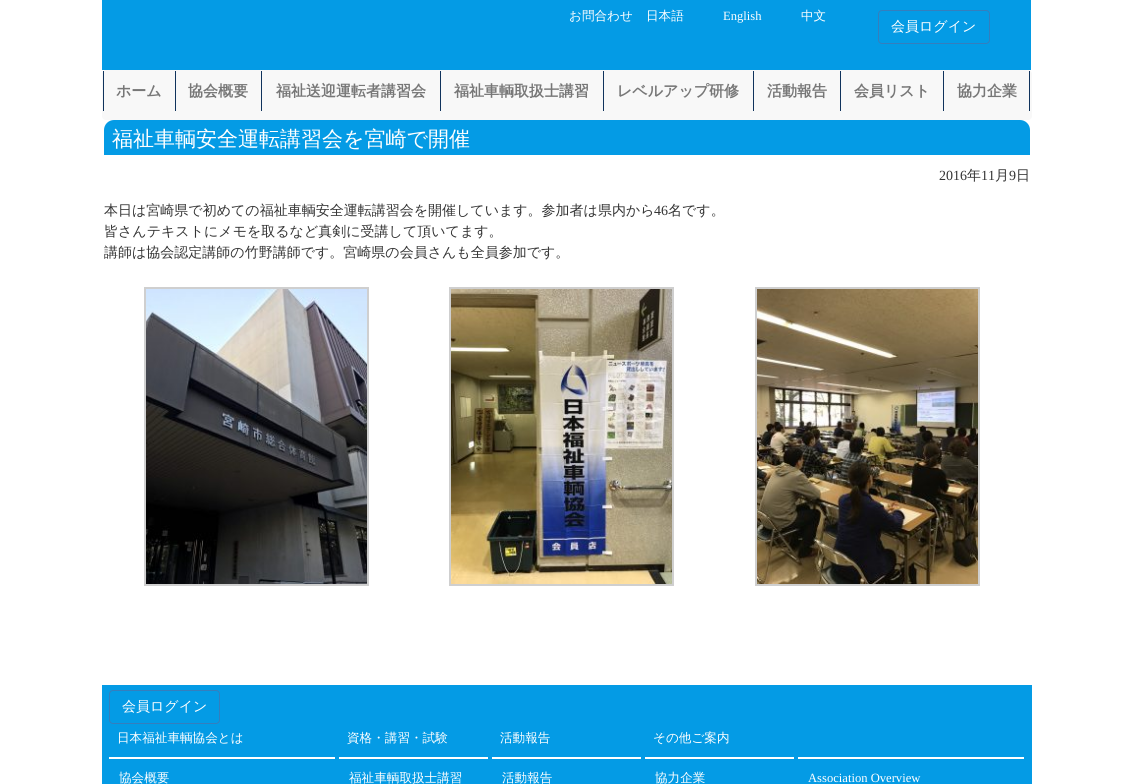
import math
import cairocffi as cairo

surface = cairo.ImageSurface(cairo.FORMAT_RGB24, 1133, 784)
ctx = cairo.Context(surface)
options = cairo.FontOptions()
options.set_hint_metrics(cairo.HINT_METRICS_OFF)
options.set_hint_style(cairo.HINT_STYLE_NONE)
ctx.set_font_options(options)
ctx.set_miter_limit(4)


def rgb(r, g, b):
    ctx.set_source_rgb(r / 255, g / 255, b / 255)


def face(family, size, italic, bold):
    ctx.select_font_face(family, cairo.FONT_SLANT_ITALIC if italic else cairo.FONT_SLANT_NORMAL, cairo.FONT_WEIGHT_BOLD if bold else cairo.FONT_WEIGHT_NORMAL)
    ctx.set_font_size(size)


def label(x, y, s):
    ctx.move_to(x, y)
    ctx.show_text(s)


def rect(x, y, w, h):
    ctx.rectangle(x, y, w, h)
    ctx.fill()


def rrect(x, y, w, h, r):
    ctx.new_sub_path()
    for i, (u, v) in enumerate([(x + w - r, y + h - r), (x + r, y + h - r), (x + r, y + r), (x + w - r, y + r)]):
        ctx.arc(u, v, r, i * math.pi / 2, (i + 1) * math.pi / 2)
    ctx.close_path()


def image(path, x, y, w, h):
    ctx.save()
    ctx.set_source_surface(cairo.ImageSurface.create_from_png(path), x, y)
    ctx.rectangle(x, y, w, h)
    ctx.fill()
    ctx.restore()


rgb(255, 255, 255)
ctx.paint()
rgb(4, 155, 229)
rect(102, 0, 929, 70)
face('WenQuanYi Zen Hei Medium', 12.6, 0, 0)
rgb(255, 255, 255)
label(569, 20, 'お問合わせ')
label(646, 20, '日本語')
face('Liberation Serif', 12.6, 0, 0)
label(723, 20, 'English')
face('WenQuanYi Zen Hei Medium', 12.6, 0, 0)
label(801, 20, '中文')
rrect(878.5, 10.5, 111, 33, 3.5)
rgb(53, 126, 189)
ctx.set_line_width(1)
ctx.stroke()
face('WenQuanYi Zen Hei Medium', 14, 0, 0)
rgb(255, 255, 255)
label(891, 31, '会員ログイン')
rgb(248, 248, 248)
rrect(102, 70, 930, 50, 4)
ctx.fill()
rgb(16, 51, 92)
rect(175, 71, 1, 40)
rect(103, 71, 1, 40)
face('WenQuanYi Zen Hei', 15, 0, 1)
rgb(119, 119, 119)
label(116, 96, 'ホーム')
rgb(16, 51, 92)
rect(261, 71, 1, 40)
rgb(119, 119, 119)
label(188, 96, '協会概要')
rgb(16, 51, 92)
rect(440, 71, 1, 40)
rgb(119, 119, 119)
label(276, 96, '福祉送迎運転者講習会')
rgb(16, 51, 92)
rect(603, 71, 1, 40)
rgb(119, 119, 119)
label(454, 96, '福祉車輌取扱士講習')
rgb(16, 51, 92)
rect(753, 71, 1, 40)
rgb(119, 119, 119)
label(617, 96, 'レベルアップ研修')
rgb(16, 51, 92)
rect(840, 71, 1, 40)
rgb(119, 119, 119)
label(767, 96, '活動報告')
rgb(16, 51, 92)
rect(943, 71, 1, 40)
rgb(119, 119, 119)
label(854, 96, '会員リスト')
rgb(16, 51, 92)
rect(1029, 71, 1, 40)
rgb(119, 119, 119)
label(957, 96, '協力企業')
rgb(4, 155, 229)
ctx.new_path()
ctx.move_to(114, 120)
ctx.line_to(1020, 120)
ctx.curve_to(1025.5, 120, 1030, 124.5, 1030, 130)
ctx.line_to(1030, 155)
ctx.line_to(104, 155)
ctx.line_to(104, 130)
ctx.curve_to(104, 124.5, 108.5, 120, 114, 120)
ctx.close_path()
ctx.fill()
face('WenQuanYi Zen Hei Medium', 21, 0, 0)
rgb(255, 255, 255)
label(112, 146, '福祉車輌安全運転講習会を宮崎で開催')
face('Liberation Serif', 14, 0, 0)
rgb(51, 51, 51)
label(939, 180, '2016')
face('WenQuanYi Zen Hei Medium', 14, 0, 0)
label(967, 180, '年')
face('Liberation Serif', 14, 0, 0)
label(981, 180, '11')
face('WenQuanYi Zen Hei Medium', 14, 0, 0)
label(995, 180, '月')
face('Liberation Serif', 14, 0, 0)
label(1009, 180, '9')
face('WenQuanYi Zen Hei Medium', 14, 0, 0)
label(1016, 180, '日')
label(104, 215, '本日は宮崎県で初めての福祉車輌安全運転講習会を開催しています。参加者は県内から')
face('Liberation Serif', 14, 0, 0)
label(654, 215, '46')
face('WenQuanYi Zen Hei Medium', 14, 0, 0)
label(668, 215, '名です。')
label(104, 236, '皆さんテキストにメモを取るなど真剣に受講して頂いてます。')
label(104, 257, '講師は協会認定講師の竹野講師です。宮崎県の会員さんも全員参加です。')
ctx.rectangle(145, 288, 223, 297)
rgb(207, 207, 207)
ctx.set_line_width(2)
ctx.stroke()
image('image0.png', 146, 289, 221, 295)
ctx.rectangle(450, 288, 223, 297)
ctx.stroke()
image('image1.png', 451, 289, 221, 295)
ctx.rectangle(756, 288, 223, 297)
ctx.stroke()
image('image2.png', 757, 289, 221, 295)
rgb(4, 155, 229)
rect(102, 685, 930, 99)
rrect(109.5, 690.5, 110, 33, 3.5)
rgb(53, 126, 189)
ctx.set_line_width(1)
ctx.stroke()
rgb(255, 255, 255)
label(122, 711, '会員ログイン')
rect(109, 757, 226, 2)
face('WenQuanYi Zen Hei Medium', 12.6, 0, 0)
label(117, 742, '日本福祉車輌協会とは')
label(119, 782, '協会概要')
rect(339, 757, 149, 2)
label(347, 742, '資格・講習・試験')
label(349, 782, '福祉車輌取扱士講習')
rect(492, 757, 149, 2)
label(500, 742, '活動報告')
label(502, 782, '活動報告')
rect(645, 757, 149, 2)
label(653, 742, 'その他ご案内')
label(655, 782, '協力企業')
rect(798, 757, 226, 2)
face('Liberation Serif', 12.6, 0, 0)
label(808, 782, 'Association Overview')
surface.write_to_png('render.png')
